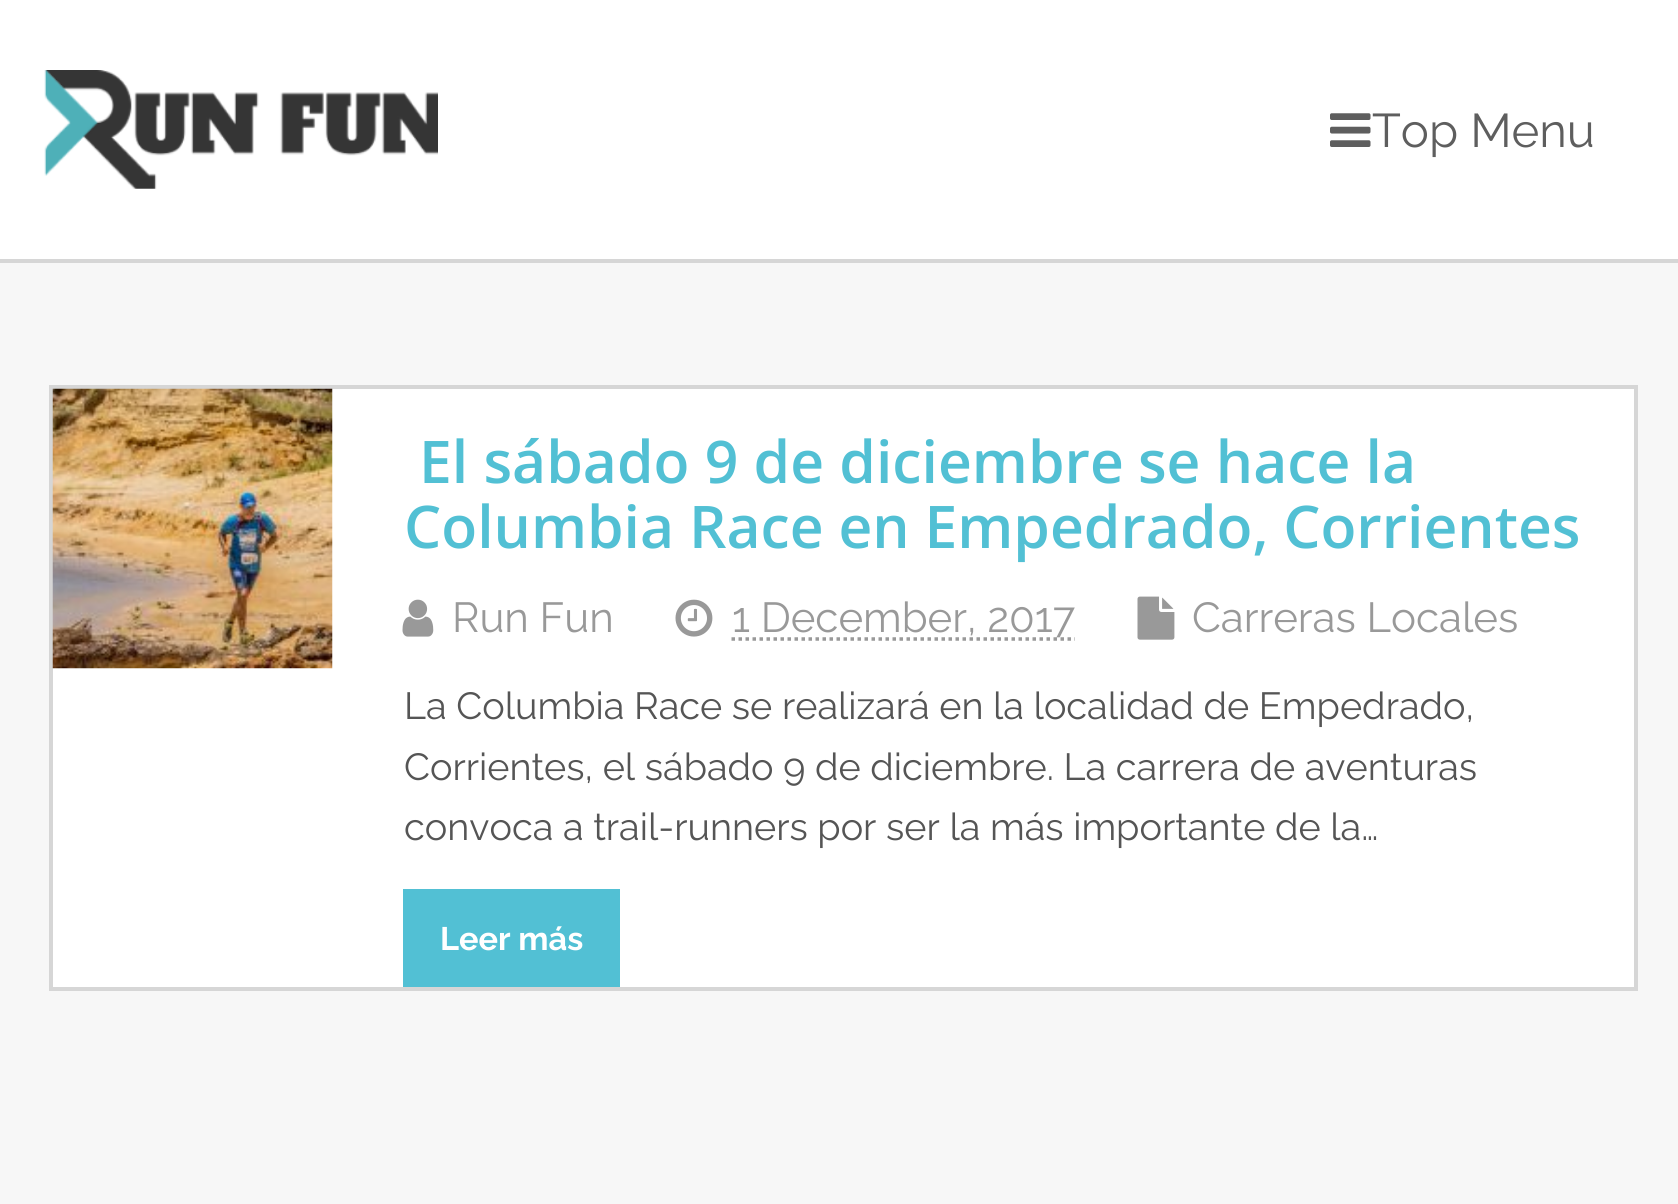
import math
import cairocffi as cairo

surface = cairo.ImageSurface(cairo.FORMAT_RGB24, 1678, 1204)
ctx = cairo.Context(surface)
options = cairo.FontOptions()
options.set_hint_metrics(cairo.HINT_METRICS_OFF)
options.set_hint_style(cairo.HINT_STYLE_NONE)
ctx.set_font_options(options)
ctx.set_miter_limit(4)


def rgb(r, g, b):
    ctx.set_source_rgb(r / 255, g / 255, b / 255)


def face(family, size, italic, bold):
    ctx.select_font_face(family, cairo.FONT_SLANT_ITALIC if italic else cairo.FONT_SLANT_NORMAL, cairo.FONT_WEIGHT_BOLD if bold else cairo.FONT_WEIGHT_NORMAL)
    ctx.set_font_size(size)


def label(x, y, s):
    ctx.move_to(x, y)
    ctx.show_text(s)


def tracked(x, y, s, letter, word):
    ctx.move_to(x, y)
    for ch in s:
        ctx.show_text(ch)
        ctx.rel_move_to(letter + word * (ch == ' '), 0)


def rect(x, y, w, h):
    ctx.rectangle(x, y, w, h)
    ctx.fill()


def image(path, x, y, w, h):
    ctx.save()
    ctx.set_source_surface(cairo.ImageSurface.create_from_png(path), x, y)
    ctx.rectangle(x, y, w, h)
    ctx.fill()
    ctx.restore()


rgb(247, 247, 247)
ctx.paint()
rgb(255, 255, 255)
rect(0, 0, 1678, 259)
rgb(214, 214, 214)
rect(0, 259, 1678, 4)
image('image0.png', 44, 70, 394, 119)
image('image1.png', 1330, 113, 41, 34)
face('Raleway', 47.25, 0, 0)
rgb(94, 94, 94)
label(1372, 147, 'Top Menu')
rgb(255, 255, 255)
ctx.rectangle(51, 387, 1585, 602)
ctx.fill_preserve()
rgb(214, 214, 214)
ctx.set_line_width(4)
ctx.stroke()
image('image2.png', 52, 388, 281, 281)
face('Open Sans SemiBold', 58.8, 0, 0)
rgb(82, 192, 212)
label(419, 483, 'El sábado 9 de diciembre')
label(1138, 483, 'se hace la')
tracked(404, 548, 'Columbia Race en Empedrado, Corrientes', 0, -0.5)
image('image3.png', 402, 599, 32, 38)
face('Raleway', 42, 0, 0)
rgb(153, 153, 153)
label(452, 632, 'Run Fun')
image('image4.png', 675, 599, 38, 38)
ctx.new_path()
ctx.move_to(731.5, 639)
ctx.line_to(1075, 639)
ctx.set_line_width(3.5)
ctx.set_dash([3.5, 3.5])
ctx.stroke()
label(732, 632, '1 December, 2017')
image('image5.png', 1137, 596, 38, 44)
label(1192, 632, 'Carreras Locales')
face('Raleway', 37.8, 0, 0)
rgb(85, 85, 85)
label(404, 719, 'La Columbia Race se realizará en la localidad de Empedrado,')
label(404, 780, 'Corrientes, el sábado 9 de diciembre. La carrera de aventuras')
label(404, 840, 'convoca a trail-runners por ser la más importante de la…')
rgb(82, 192, 212)
rect(403, 889, 217, 98)
face('Raleway', 32.5, 0, 1)
rgb(255, 255, 255)
label(440, 950, 'Leer más')
surface.write_to_png('render.png')
